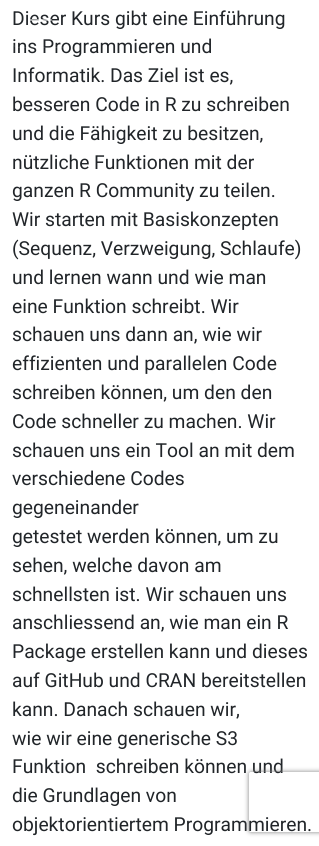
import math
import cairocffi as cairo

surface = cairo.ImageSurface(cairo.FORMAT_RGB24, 319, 846)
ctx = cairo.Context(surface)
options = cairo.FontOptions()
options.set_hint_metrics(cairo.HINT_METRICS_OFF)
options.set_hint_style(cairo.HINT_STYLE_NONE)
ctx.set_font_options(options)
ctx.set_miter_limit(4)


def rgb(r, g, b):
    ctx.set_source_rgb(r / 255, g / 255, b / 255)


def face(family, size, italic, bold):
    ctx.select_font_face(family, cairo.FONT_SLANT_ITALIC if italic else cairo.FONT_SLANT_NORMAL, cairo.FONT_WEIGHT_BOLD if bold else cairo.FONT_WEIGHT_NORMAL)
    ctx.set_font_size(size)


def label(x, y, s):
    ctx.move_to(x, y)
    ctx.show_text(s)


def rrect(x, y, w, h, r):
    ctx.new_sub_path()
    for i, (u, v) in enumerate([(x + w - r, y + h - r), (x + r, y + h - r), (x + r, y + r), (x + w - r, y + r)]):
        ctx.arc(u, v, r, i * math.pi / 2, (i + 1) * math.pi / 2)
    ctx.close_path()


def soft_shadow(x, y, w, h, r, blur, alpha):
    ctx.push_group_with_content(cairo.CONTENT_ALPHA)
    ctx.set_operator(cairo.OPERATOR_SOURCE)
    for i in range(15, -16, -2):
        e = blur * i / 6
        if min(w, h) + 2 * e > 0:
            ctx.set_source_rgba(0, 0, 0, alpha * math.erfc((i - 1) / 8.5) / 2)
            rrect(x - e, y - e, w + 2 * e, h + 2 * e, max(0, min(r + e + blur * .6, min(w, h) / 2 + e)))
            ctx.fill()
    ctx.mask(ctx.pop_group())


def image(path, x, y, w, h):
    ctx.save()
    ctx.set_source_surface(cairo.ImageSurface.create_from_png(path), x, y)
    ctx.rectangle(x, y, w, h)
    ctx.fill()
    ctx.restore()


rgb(255, 255, 255)
ctx.paint()
face('Roboto', 19.25, 0, 0)
rgb(33, 37, 41)
label(12, 25, 'Dieser Kurs gibt eine Einführung')
label(12, 53, 'ins Programmieren und')
rrect(12.5, 8.5, 55, 39, 5.5)
ctx.set_source_rgba(1, 1, 1, 0.1)
ctx.set_line_width(1)
ctx.stroke()
image('image0.png', 30, 19, 22, 2)
rgb(33, 37, 41)
label(12, 82, 'Informatik. Das Ziel ist es,')
label(12, 111, 'besseren Code in R zu schreiben')
label(12, 140, 'und die Fähigkeit zu besitzen,')
label(12, 169, 'nützliche Funktionen mit der')
label(12, 197, 'ganzen R Community zu teilen.')
label(12, 226, 'Wir starten mit Basiskonzepten')
label(12, 255, '(Sequenz, Verzweigung, Schlaufe)')
label(12, 284, 'und lernen wann und wie man')
label(12, 313, 'eine Funktion schreibt. Wir')
label(12, 341, 'schauen uns dann an, wie wir')
label(12, 370, 'effizienten und parallelen Code')
label(12, 399, 'schreiben können, um den den')
label(12, 428, 'Code schneller zu machen. Wir')
label(12, 457, 'schauen uns ein Tool an mit dem')
label(12, 485, 'verschiedene Codes')
label(12, 514, 'gegeneinander')
label(12, 543, 'getestet werden können, um zu')
label(12, 572, 'sehen, welche davon am')
label(12, 601, 'schnellsten ist. Wir schauen uns')
label(12, 629, 'anschliessend an, wie man ein R')
label(12, 658, 'Package erstellen kann und dieses')
label(12, 687, 'auf GitHub und CRAN bereitstellen')
label(12, 716, 'kann. Danach schauen wir,')
label(12, 745, 'wie wir eine generische S3')
label(12, 773, 'Funktion  schreiben können und')
label(12, 802, 'die Grundlagen von')
label(12, 831, 'objektorientiertem Programmieren.')
ctx.save()
ctx.set_fill_rule(cairo.FILL_RULE_EVEN_ODD)
ctx.new_path()
ctx.move_to(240, 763)
ctx.line_to(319, 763)
ctx.line_to(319, 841)
ctx.line_to(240, 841)
ctx.close_path()
ctx.move_to(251, 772)
ctx.line_to(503, 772)
ctx.curve_to(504, 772, 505, 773, 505, 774)
ctx.line_to(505, 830)
ctx.curve_to(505, 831, 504, 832, 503, 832)
ctx.line_to(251, 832)
ctx.curve_to(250, 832, 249, 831, 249, 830)
ctx.line_to(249, 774)
ctx.curve_to(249, 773, 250, 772, 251, 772)
ctx.close_path()
ctx.clip()
rgb(128, 128, 128)
soft_shadow(249, 772, 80, 60, 2, 2.5, 1)
ctx.restore()
surface.write_to_png('render.png')
